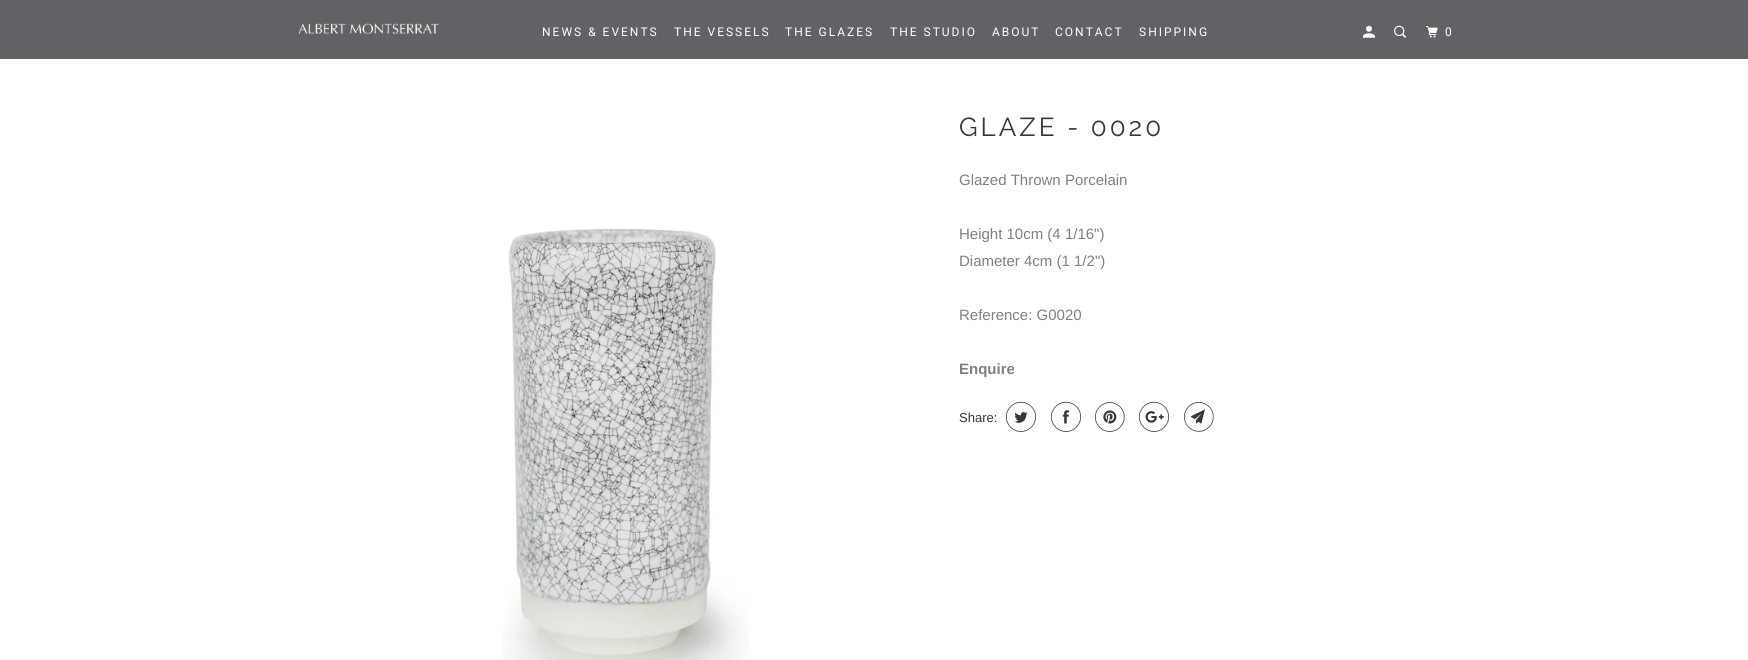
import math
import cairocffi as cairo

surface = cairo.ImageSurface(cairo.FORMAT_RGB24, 1748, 660)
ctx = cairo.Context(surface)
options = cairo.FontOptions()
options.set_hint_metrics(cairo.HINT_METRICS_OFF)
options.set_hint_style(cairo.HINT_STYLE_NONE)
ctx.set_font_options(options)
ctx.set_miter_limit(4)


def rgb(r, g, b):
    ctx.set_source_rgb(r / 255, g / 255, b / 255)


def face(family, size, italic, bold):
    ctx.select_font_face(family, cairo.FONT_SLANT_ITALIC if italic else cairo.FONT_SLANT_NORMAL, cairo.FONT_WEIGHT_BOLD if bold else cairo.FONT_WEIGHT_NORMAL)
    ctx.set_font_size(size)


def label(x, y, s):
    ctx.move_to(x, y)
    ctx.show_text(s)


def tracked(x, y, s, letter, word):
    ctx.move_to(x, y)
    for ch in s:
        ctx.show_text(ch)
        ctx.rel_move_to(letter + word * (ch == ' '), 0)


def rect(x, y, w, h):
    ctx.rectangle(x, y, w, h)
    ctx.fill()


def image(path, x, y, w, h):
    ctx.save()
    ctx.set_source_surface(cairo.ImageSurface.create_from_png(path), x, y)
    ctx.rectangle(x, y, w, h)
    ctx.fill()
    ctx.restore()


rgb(255, 255, 255)
ctx.paint()
rgb(96, 98, 101)
rect(0, 0, 1748, 59)
image('image0.png', 298, 23, 141, 11)
face('Roboto', 12, 0, 0)
rgb(255, 255, 255)
tracked(542, 36, 'NEWS & EVENTS', 2, 0)
tracked(674, 36, 'THE VESSELS', 2, 0)
tracked(785, 36, 'THE GLAZES', 2, 0)
tracked(890, 36, 'THE STUDIO', 2, 0)
tracked(992, 36, 'ABOUT', 2, 0)
tracked(1055, 36, 'CONTACT', 2, 0)
tracked(1139, 36, 'SHIPPING', 2, 0)
image('image1.png', 1363, 25, 12, 13)
image('image2.png', 1394, 25, 12, 13)
image('image3.png', 1426, 26, 12, 12)
tracked(1445, 36, '0', 2, 0)
image('image4.png', 503, 228, 246, 432)
face('Raleway', 26, 0, 0)
rgb(54, 54, 54)
tracked(959, 136, 'GLAZE - 0020', 3, 0)
face('Liberation Sans', 15, 0, 0)
rgb(128, 128, 128)
label(959, 185, 'Glazed Thrown Porcelain')
label(959, 239, 'Height 10cm (4 1/16")')
label(959, 266, 'Diameter 4cm (1 1/2")')
label(959, 320, 'Reference: G0020')
face('Liberation Sans', 15, 0, 1)
label(959, 374, 'Enquire')
face('Liberation Sans', 13, 0, 0)
rgb(54, 54, 54)
label(959, 422, 'Share:')
image('image5.png', 1006, 401, 30, 31)
image('image6.png', 1051, 401, 30, 31)
image('image7.png', 1095, 402, 30, 30)
image('image8.png', 1139, 401, 30, 31)
image('image9.png', 1184, 402, 30, 30)
surface.write_to_png('render.png')
